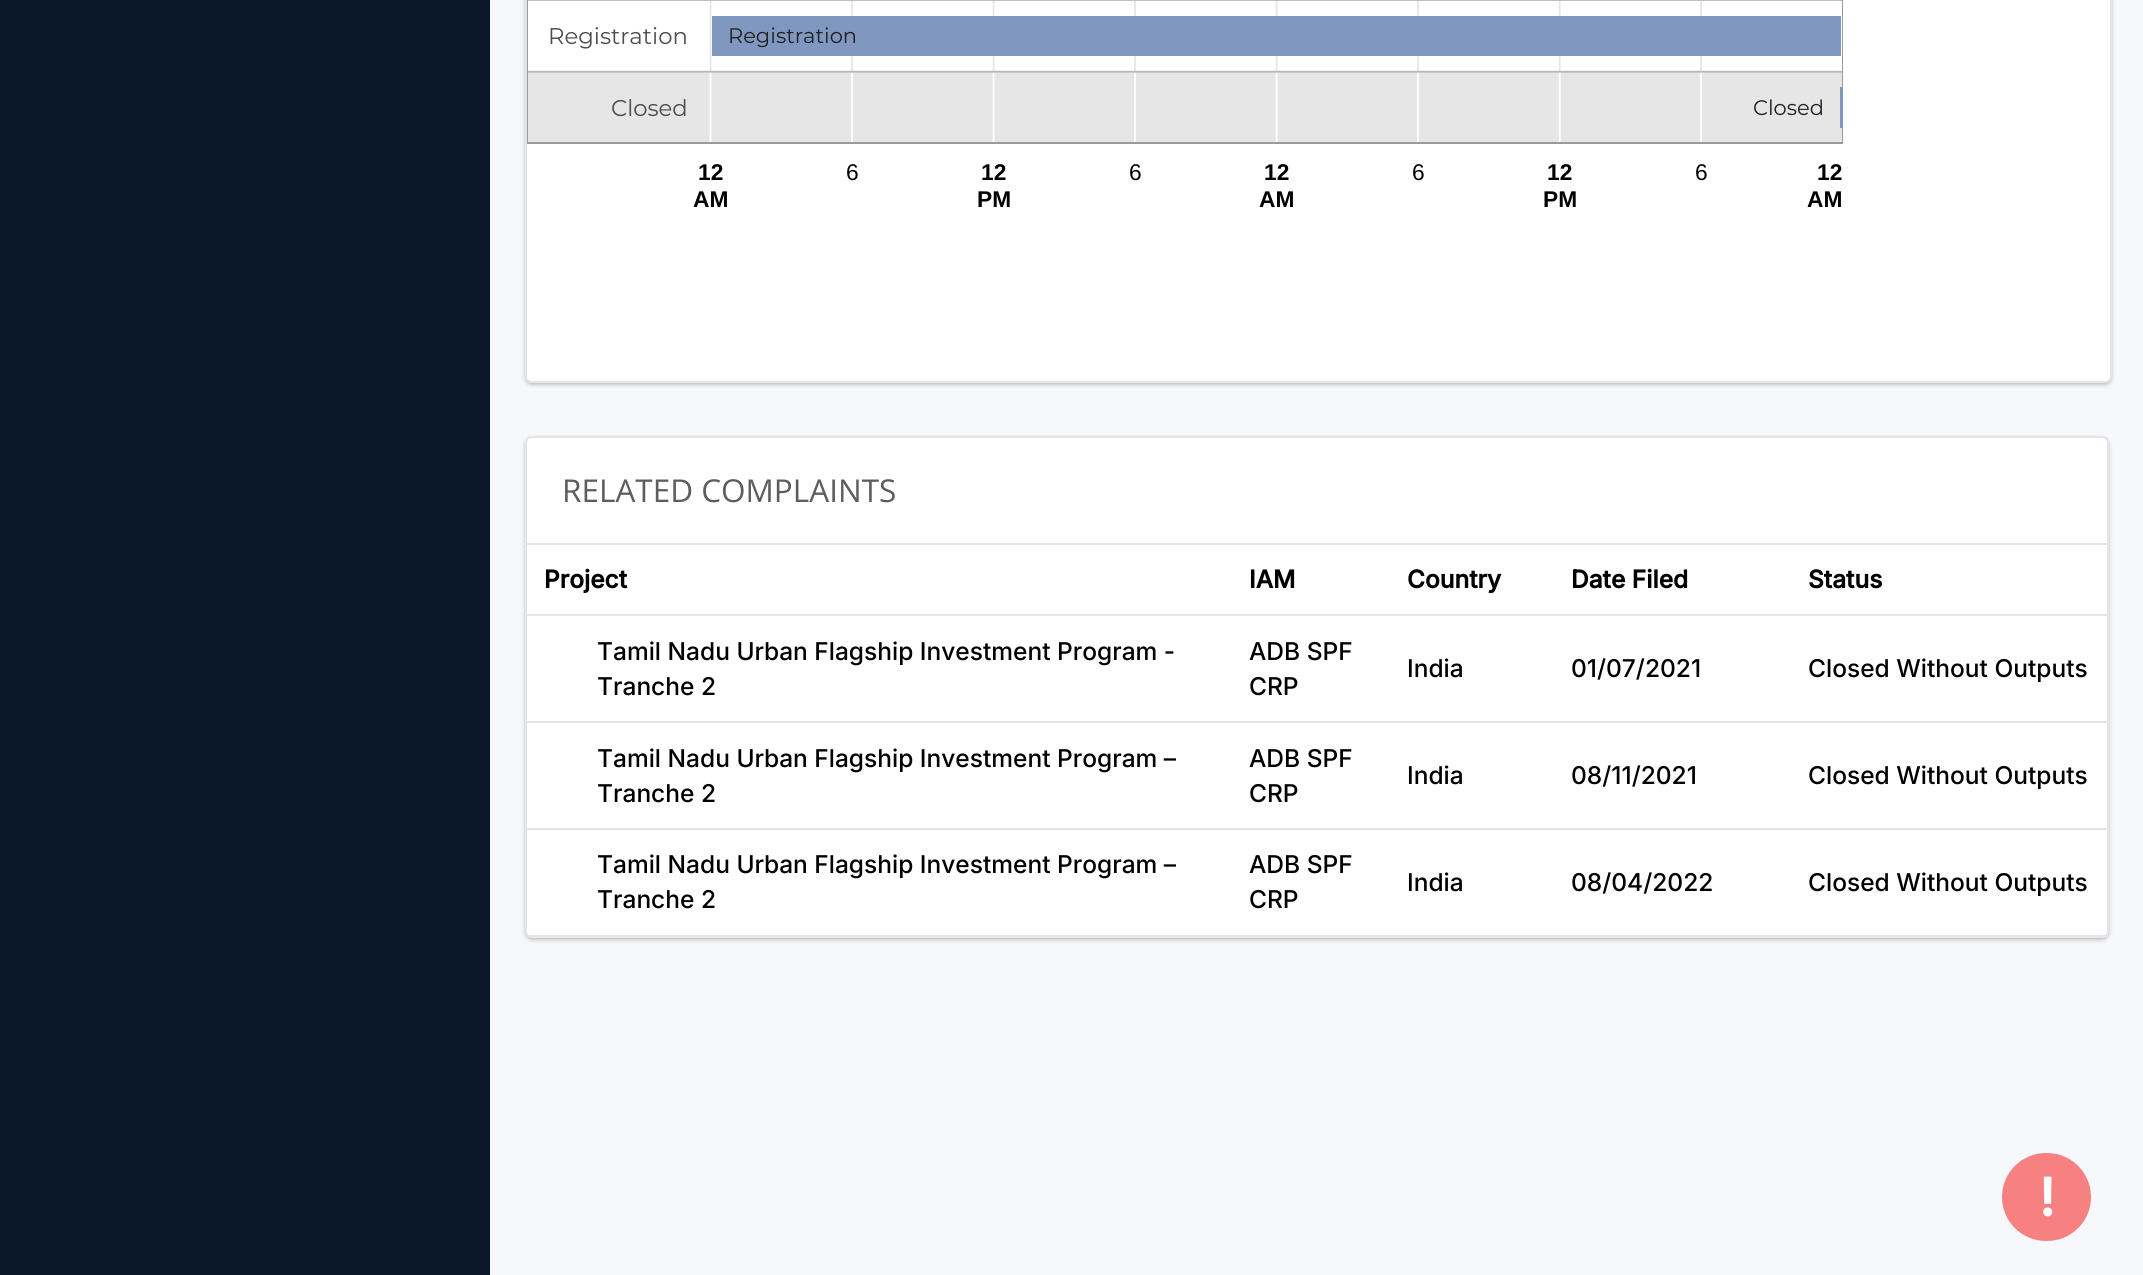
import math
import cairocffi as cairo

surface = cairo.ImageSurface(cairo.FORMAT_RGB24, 2143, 1275)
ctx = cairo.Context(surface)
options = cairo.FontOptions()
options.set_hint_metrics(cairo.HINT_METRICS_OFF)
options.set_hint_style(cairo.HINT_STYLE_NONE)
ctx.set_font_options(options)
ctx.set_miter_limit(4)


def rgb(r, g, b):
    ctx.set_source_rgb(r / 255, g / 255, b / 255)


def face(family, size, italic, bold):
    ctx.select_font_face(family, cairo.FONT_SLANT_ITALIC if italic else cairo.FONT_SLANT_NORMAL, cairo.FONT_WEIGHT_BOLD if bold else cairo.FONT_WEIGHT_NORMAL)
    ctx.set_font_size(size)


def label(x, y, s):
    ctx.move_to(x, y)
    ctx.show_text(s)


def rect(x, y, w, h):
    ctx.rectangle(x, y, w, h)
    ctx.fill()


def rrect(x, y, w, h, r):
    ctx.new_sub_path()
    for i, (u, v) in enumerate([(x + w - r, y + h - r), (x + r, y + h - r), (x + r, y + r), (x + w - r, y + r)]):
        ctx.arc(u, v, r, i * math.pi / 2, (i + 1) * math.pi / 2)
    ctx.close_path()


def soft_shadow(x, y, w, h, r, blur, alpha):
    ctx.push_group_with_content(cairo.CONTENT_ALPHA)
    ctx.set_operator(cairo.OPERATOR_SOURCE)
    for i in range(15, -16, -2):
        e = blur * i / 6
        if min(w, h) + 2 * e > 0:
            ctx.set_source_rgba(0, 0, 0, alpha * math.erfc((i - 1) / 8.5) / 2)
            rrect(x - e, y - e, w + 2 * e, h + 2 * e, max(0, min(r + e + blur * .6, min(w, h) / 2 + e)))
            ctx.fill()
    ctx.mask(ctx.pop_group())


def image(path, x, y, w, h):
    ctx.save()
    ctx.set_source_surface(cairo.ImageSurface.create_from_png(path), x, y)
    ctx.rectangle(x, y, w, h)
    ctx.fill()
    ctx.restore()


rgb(247, 248, 252)
ctx.paint()
rgb(10, 23, 41)
rect(0, 0, 490, 1275)
rgb(136, 136, 136)
soft_shadow(525, -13, 1587, 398, 7, 2, 0.5)
rgb(255, 255, 255)
rrect(526, -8, 1585, 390, 6)
ctx.fill_preserve()
rgb(229, 229, 230)
ctx.stroke()
image('image0.png', 527, 0, 1316, 144)
face('Montserrat', 22.75, 0, 0)
rgb(77, 77, 77)
label(548, 44, 'Registration')
face('Montserrat', 21, 0, 0)
rgb(32, 32, 32)
label(728, 43, 'Registration')
face('Montserrat', 22.75, 0, 0)
rgb(77, 77, 77)
label(611, 116, 'Closed')
face('Montserrat', 21, 0, 0)
rgb(32, 32, 32)
label(1753, 115, 'Closed')
face('Liberation Sans', 22.75, 0, 1)
rgb(0, 0, 0)
label(698, 180, '12')
face('Liberation Sans', 22.75, 0, 0)
label(846, 180, '6')
face('Liberation Sans', 22.75, 0, 1)
label(981, 180, '12')
face('Liberation Sans', 22.75, 0, 0)
label(1129, 180, '6')
face('Liberation Sans', 22.75, 0, 1)
label(1264, 180, '12')
face('Liberation Sans', 22.75, 0, 0)
label(1412, 180, '6')
face('Liberation Sans', 22.75, 0, 1)
label(1547, 180, '12')
face('Liberation Sans', 22.75, 0, 0)
label(1695, 180, '6')
face('Liberation Sans', 22.75, 0, 1)
label(1817, 180, '12')
label(693, 207, 'AM')
label(977, 207, 'PM')
label(1259, 207, 'AM')
label(1543, 207, 'PM')
label(1807, 207, 'AM')
rgb(136, 136, 136)
soft_shadow(525, 438, 1584, 502, 7, 2, 0.5)
rgb(255, 255, 255)
rrect(526, 437, 1582, 500, 6)
ctx.fill_preserve()
rgb(229, 229, 230)
ctx.stroke()
rect(527, 543, 1580, 2)
face('Open Sans', 31.5, 0, 0)
rgb(93, 93, 93)
label(562, 502, 'RELATED COMPLAINTS')
rgb(229, 229, 230)
rect(527, 614, 1582, 2)
face('Inter', 24.5, 0, 1)
rgb(0, 0, 0)
label(544, 588, 'Project')
label(1249, 588, 'IAM')
label(1407, 588, 'Country')
label(1571, 588, 'Date Filed')
label(1808, 588, 'Status')
rgb(229, 229, 230)
rect(527, 721, 1582, 2)
face('Inter Medium', 24.5, 0, 0)
rgb(0, 0, 0)
label(597, 660, 'Tamil Nadu Urban Flagship Investment Program -')
label(597, 695, 'Tranche 2')
label(1249, 660, 'ADB SPF')
label(1249, 695, 'CRP')
label(1407, 677, 'India')
label(1571, 677, '01/07/2021')
label(1808, 677, 'Closed Without Outputs')
rgb(229, 229, 230)
rect(527, 828, 1582, 2)
rgb(0, 0, 0)
label(597, 767, 'Tamil Nadu Urban Flagship Investment Program –')
label(597, 802, 'Tranche 2')
label(1249, 767, 'ADB SPF')
label(1249, 802, 'CRP')
label(1407, 784, 'India')
label(1571, 784, '08/11/2021')
label(1808, 784, 'Closed Without Outputs')
rgb(229, 229, 230)
rect(527, 935, 1582, 2)
rgb(0, 0, 0)
label(597, 873, 'Tamil Nadu Urban Flagship Investment Program –')
label(597, 908, 'Tranche 2')
label(1249, 873, 'ADB SPF')
label(1249, 908, 'CRP')
label(1407, 891, 'India')
label(1571, 891, '08/04/2022')
label(1808, 891, 'Closed Without Outputs')
rgb(247, 129, 129)
rrect(2002, 1153, 89, 88, 44)
ctx.fill()
face('Inter', 52, 0, 1)
rgb(255, 255, 255)
label(2039, 1216, '!')
surface.write_to_png('render.png')
